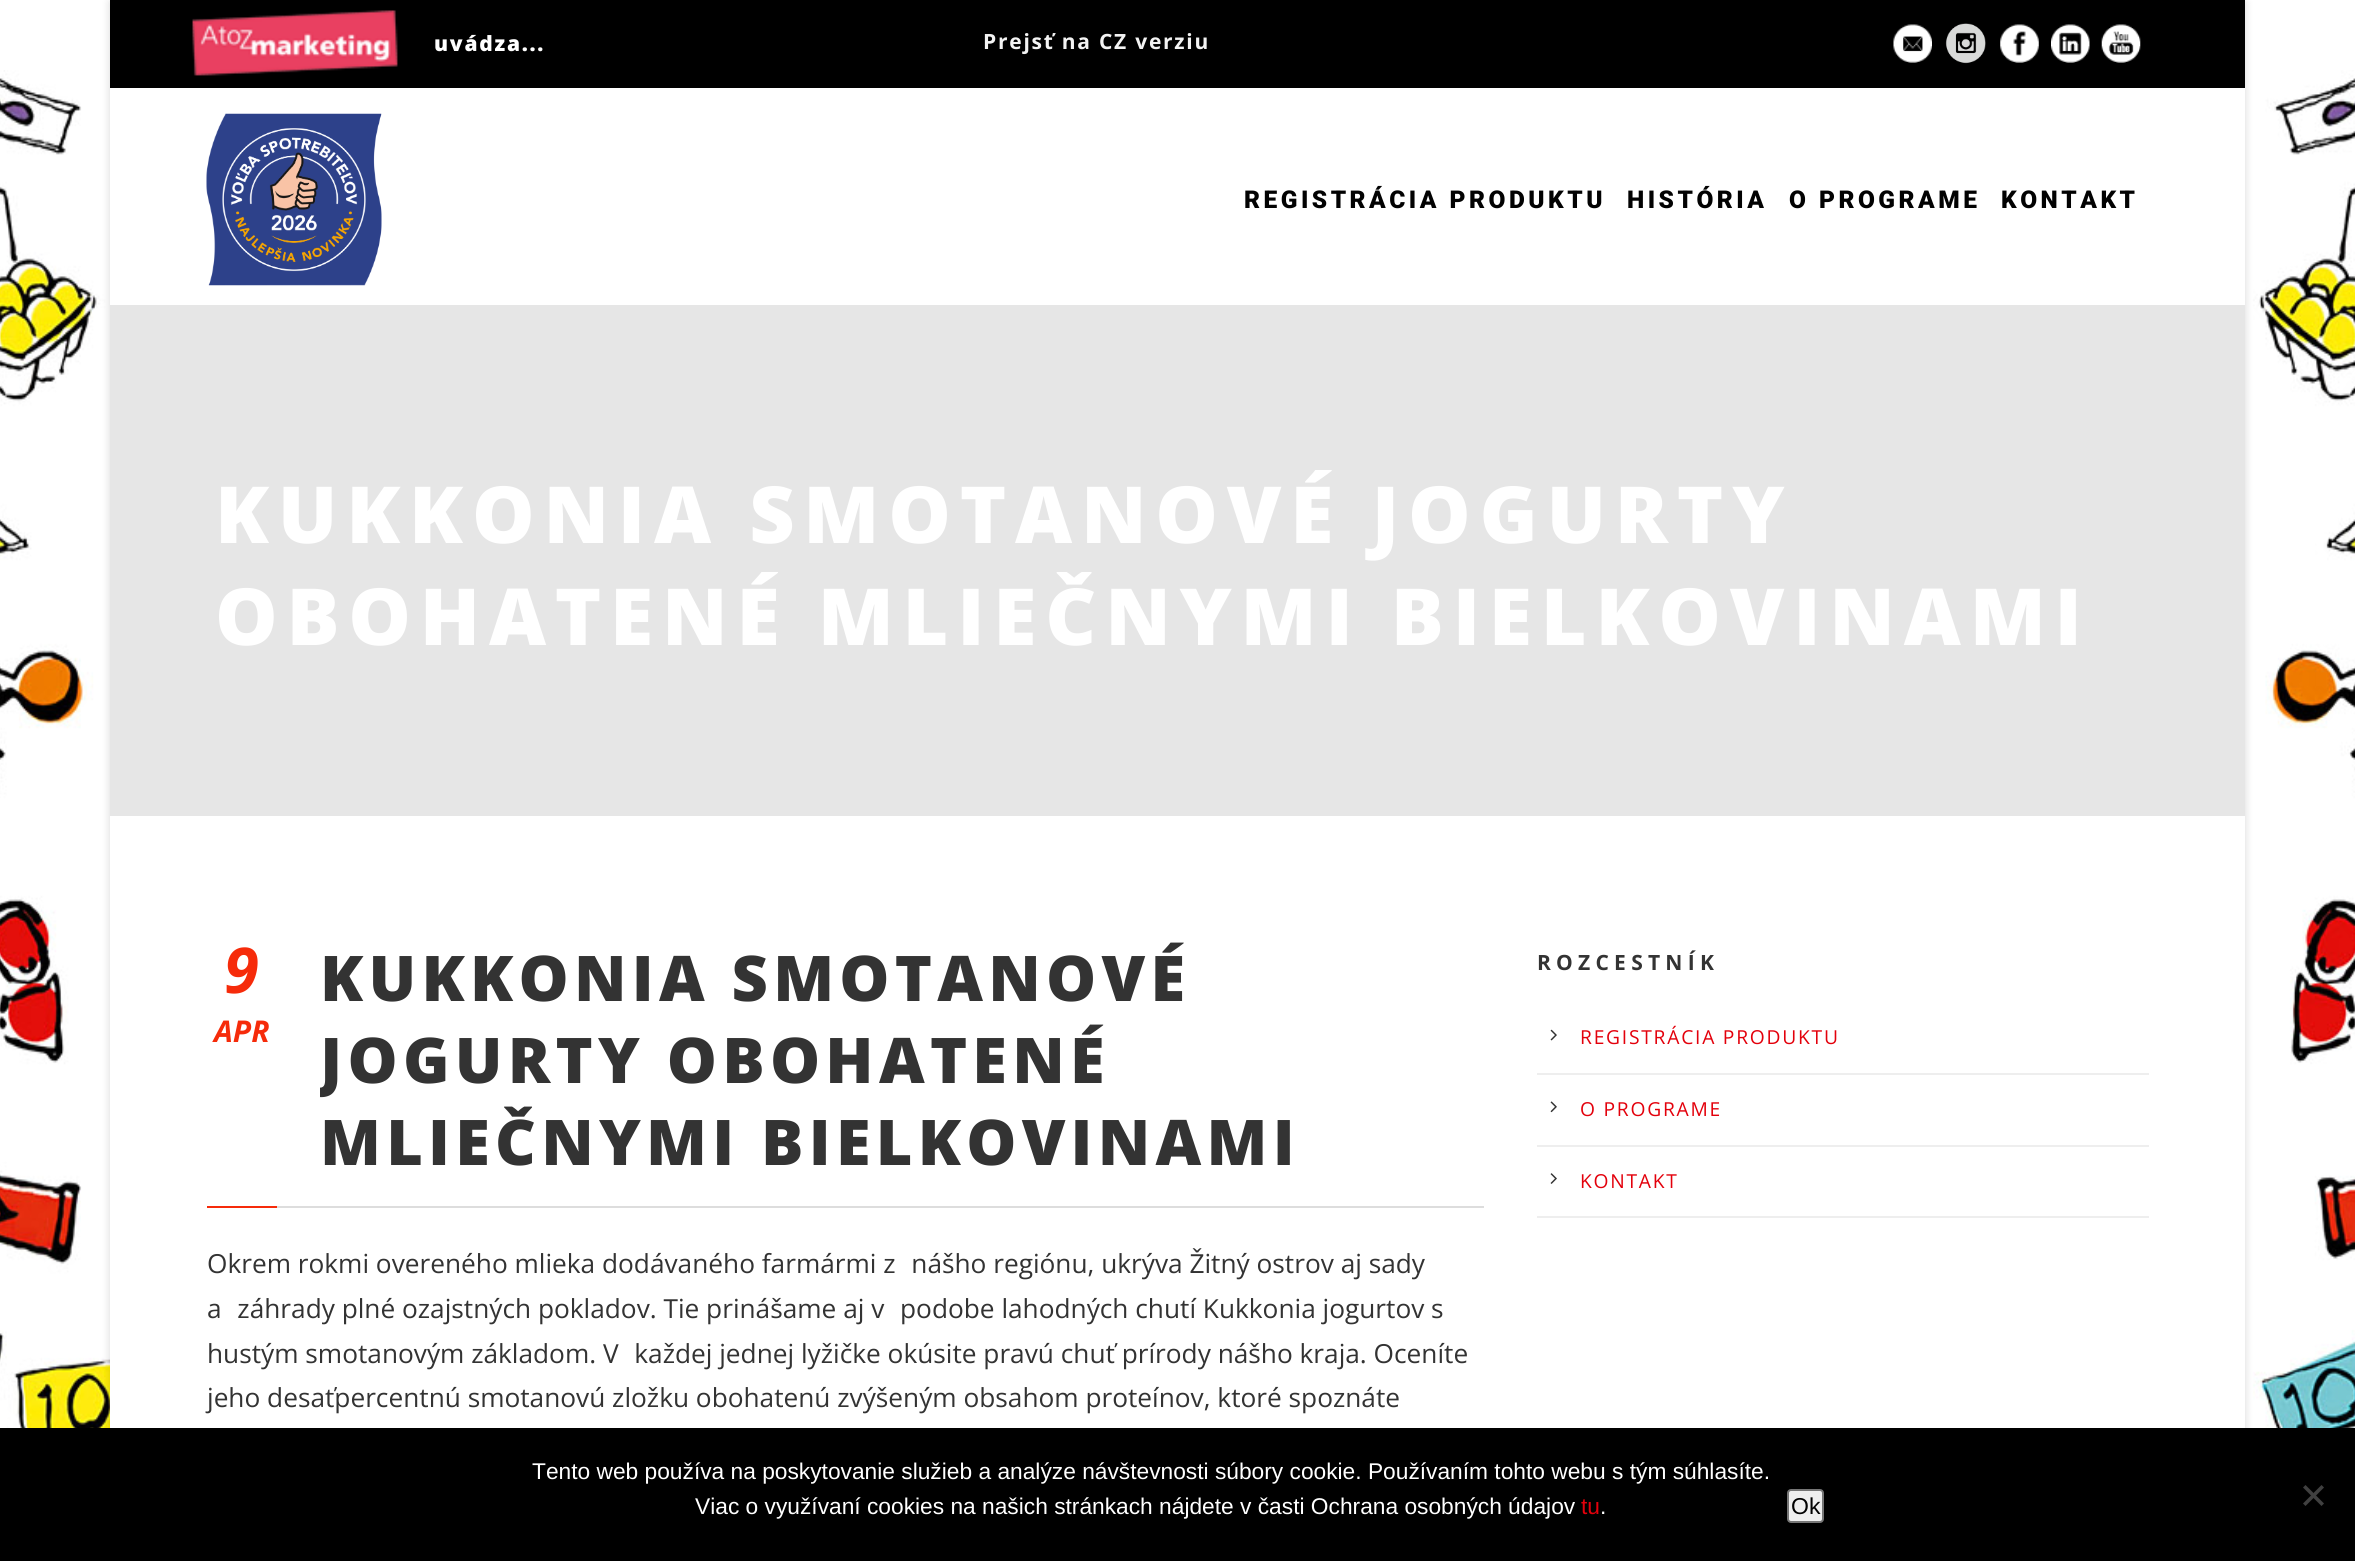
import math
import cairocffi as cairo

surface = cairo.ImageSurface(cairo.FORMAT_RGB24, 2355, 1561)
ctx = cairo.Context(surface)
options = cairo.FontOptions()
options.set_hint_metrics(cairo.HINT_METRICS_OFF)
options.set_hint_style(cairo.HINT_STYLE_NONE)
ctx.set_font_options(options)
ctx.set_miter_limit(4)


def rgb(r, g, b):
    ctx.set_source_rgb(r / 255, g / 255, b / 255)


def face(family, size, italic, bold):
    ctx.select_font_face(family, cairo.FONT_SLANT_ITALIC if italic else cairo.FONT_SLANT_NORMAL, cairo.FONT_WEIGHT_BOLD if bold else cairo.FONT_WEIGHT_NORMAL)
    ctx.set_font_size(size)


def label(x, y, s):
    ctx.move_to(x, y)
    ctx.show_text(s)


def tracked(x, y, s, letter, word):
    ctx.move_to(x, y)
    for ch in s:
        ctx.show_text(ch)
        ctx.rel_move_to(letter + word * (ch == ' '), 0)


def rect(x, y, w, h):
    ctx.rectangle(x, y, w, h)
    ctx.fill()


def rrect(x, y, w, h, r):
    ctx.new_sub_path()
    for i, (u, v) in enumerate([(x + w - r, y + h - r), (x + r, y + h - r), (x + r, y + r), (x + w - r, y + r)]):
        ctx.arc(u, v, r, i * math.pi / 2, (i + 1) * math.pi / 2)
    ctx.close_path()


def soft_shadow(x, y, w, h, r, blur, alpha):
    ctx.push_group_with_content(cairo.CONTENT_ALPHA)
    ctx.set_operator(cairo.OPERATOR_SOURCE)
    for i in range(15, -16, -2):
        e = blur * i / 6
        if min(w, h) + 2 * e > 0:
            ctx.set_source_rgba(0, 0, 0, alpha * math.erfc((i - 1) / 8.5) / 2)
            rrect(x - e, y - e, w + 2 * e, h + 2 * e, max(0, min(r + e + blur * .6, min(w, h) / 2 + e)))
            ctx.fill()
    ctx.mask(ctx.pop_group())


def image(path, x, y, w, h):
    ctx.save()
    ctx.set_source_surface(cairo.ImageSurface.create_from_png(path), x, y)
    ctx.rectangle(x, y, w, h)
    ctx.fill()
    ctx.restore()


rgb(255, 255, 255)
ctx.paint()
image('image0.png', 0, 70, 2355, 1358)
rgb(0, 0, 0)
soft_shadow(110, 2, 2135, 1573, 0, 4.5, 0.15)
rgb(255, 255, 255)
rect(110, 88, 2135, 1340)
rgb(0, 0, 0)
rect(110, 0, 2135, 88)
image('image1.png', 192, 10, 206, 66)
face('Open Sans ExtraBold', 21, 0, 0)
rgb(255, 255, 255)
tracked(434, 51, 'uvádza...', 1.75, 0)
face('Open Sans', 21, 0, 1)
rgb(243, 243, 243)
tracked(983, 49, 'Prejsť na CZ verziu', 1.75, 0)
image('image2.png', 1893, 24, 39, 39)
image('image3.png', 1945, 23, 41, 41)
image('image4.png', 2000, 24, 39, 39)
image('image5.png', 2051, 24, 39, 39)
image('image6.png', 2101, 24, 40, 39)
image('image7.png', 206, 113, 176, 173)
face('Roboto Black', 24.5, 0, 0)
rgb(2, 2, 2)
tracked(1244, 208, 'REGISTRÁCIA PRODUKTU', 3.5, 0)
tracked(1627, 208, 'HISTÓRIA', 3.5, 0)
tracked(1789, 208, 'O PROGRAME', 3.5, 0)
tracked(2001, 208, 'KONTAKT', 3.5, 0)
rgb(230, 230, 230)
rect(110, 305, 2135, 511)
face('Open Sans ExtraBold', 78.75, 0, 0)
rgb(255, 255, 255)
tracked(215, 543, 'KUKKONIA SMOTANOVÉ JOGURTY', 8.75, 0)
tracked(215, 645, 'OBOHATENÉ MLIEČNYMI BIELKOVINAMI', 8.75, 0)
rgb(221, 221, 221)
rect(277, 1206, 1207, 2)
face('Open Sans', 63, 1, 1)
rgb(246, 43, 10)
label(224, 993, '9')
face('Open Sans', 30, 1, 1)
label(214, 1042, 'APR')
face('Open Sans ExtraBold', 63, 0, 0)
rgb(51, 51, 51)
tracked(320, 1001, 'KUKKONIA SMOTANOVÉ', 5.25, 0)
ctx.save()
ctx.rectangle(320, 938, 1164, 247)
ctx.clip()
tracked(320, 1083, 'JOGURTY OBOHATENÉ', 5.25, 0)
ctx.restore()
tracked(320, 1165, 'MLIEČNYMI BIELKOVINAMI', 5.25, 0)
rgb(246, 43, 10)
rect(207, 1206, 70, 2)
face('Open Sans', 26.25, 0, 0)
rgb(51, 51, 51)
label(207, 1273, 'Okrem rokmi overeného mlieka dodávaného farmármi z nášho regiónu, ukrýva Žitný ostrov aj sady')
label(207, 1318, 'a záhrady plné ozajstných pokladov. Tie prinášame aj v podobe lahodných chutí Kukkonia jogurtov s')
label(207, 1363, 'hustým smotanovým základom. V každej jednej lyžičke okúsite pravú chuť prírody nášho kraja. Oceníte')
label(207, 1407, 'jeho desaťpercentnú smotanovú zložku obohatenú zvýšeným obsahom proteínov, ktoré spoznáte')
face('Open Sans', 21, 0, 1)
tracked(1537, 970, 'ROZCESTNÍK', 5.25, 0)
rgb(238, 238, 238)
rect(1537, 1073, 612, 2)
image('image8.png', 1550, 1029, 7, 12)
face('Open Sans', 19.25, 0, 0)
rgb(227, 0, 11)
tracked(1580, 1044, 'REGISTRÁCIA PRODUKTU', 1.75, 0)
rgb(238, 238, 238)
rect(1537, 1145, 612, 2)
image('image9.png', 1550, 1101, 7, 12)
rgb(227, 0, 11)
tracked(1580, 1116, 'O PROGRAME', 1.75, 0)
rgb(238, 238, 238)
rect(1537, 1216, 612, 2)
image('image10.png', 1550, 1173, 7, 11)
rgb(227, 0, 11)
tracked(1580, 1188, 'KONTAKT', 1.75, 0)
rgb(0, 0, 0)
rect(0, 1428, 2355, 133)
face('Liberation Sans', 22.75, 0, 0)
rgb(255, 255, 255)
label(532, 1479, 'Tento web používa na poskytovanie služieb a analýze návštevnosti súbory cookie. Používaním tohto webu s tým súhlasíte.')
label(695, 1514, 'Viac o využívaní cookies na našich stránkach nájdete v časti Ochrana osobných údajov')
rgb(227, 0, 11)
label(1581, 1514, 'tu')
rgb(255, 255, 255)
label(1600, 1514, '.')
rgb(239, 239, 239)
rrect(1788, 1490, 35, 32, 3)
ctx.fill_preserve()
rgb(118, 118, 118)
ctx.stroke()
face('Liberation Sans', 23, 0, 0)
rgb(2, 2, 2)
label(1791, 1514, 'Ok')
rgb(64, 64, 64)
ctx.new_path()
ctx.move_to(2321.5, 1485)
ctx.line_to(2324, 1487.5)
ctx.line_to(2305.5, 1506)
ctx.line_to(2303, 1503.5)
ctx.close_path()
ctx.fill()
ctx.new_path()
ctx.move_to(2303, 1487.5)
ctx.line_to(2305.5, 1485)
ctx.line_to(2324, 1503.5)
ctx.line_to(2321.5, 1506)
ctx.close_path()
ctx.fill()
surface.write_to_png('render.png')
